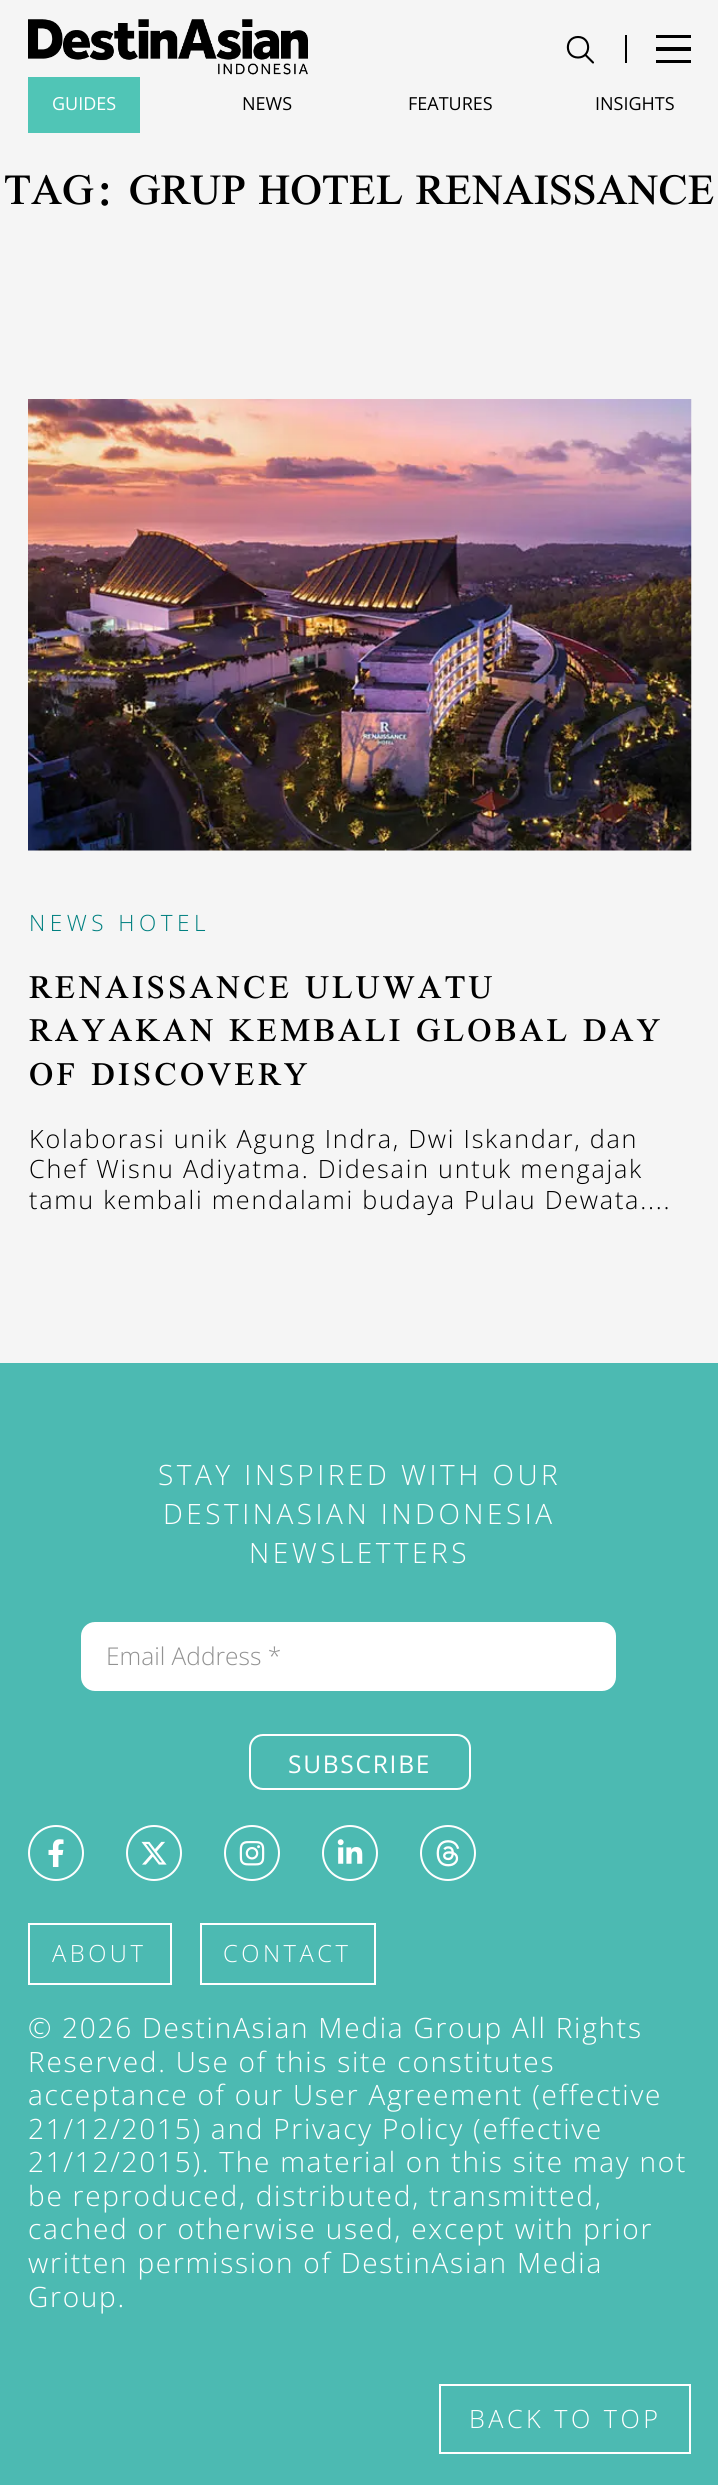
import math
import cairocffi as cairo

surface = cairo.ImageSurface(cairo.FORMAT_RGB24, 718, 2485)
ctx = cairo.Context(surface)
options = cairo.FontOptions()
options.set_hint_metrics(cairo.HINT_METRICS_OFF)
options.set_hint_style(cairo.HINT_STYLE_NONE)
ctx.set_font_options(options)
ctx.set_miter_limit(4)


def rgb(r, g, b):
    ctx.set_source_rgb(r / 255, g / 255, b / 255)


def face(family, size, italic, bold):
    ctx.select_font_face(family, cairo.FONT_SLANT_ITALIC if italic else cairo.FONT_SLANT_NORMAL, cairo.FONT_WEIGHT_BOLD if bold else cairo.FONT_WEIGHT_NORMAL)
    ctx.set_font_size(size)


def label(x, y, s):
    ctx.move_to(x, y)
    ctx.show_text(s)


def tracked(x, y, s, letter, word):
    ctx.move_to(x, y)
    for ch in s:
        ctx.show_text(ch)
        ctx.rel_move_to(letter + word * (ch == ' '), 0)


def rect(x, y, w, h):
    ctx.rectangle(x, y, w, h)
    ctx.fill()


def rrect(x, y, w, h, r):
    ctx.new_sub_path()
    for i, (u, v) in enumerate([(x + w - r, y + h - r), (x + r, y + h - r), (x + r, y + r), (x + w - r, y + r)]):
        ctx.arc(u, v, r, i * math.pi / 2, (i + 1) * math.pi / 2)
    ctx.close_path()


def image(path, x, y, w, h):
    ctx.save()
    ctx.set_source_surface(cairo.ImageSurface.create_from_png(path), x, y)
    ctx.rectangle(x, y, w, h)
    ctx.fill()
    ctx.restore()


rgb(245, 245, 245)
ctx.paint()
image('image0.png', 28, 19, 280, 56)
ctx.new_path()
ctx.move_to(578, 37)
ctx.curve_to(564.5, 37, 564.5, 57.5, 578, 57.5)
ctx.curve_to(591.5, 57.5, 591.5, 37, 578, 37)
ctx.close_path()
rgb(0, 0, 0)
ctx.set_line_width(2.1)
ctx.stroke()
ctx.new_path()
ctx.move_to(585.5, 55)
ctx.line_to(593, 62.5)
ctx.set_line_cap(cairo.LINE_CAP_ROUND)
ctx.stroke()
rect(625, 35, 2, 28)
rect(656, 35, 35, 3)
rect(656, 47, 35, 4)
rect(656, 60, 35, 3)
rgb(80, 197, 182)
rect(28, 77, 112, 56)
face('Open Sans', 18, 0, 0)
rgb(255, 255, 255)
label(52, 110, 'GUIDES')
rgb(0, 0, 0)
label(242, 110, 'NEWS')
label(408, 110, 'FEATURES')
label(595, 110, 'INSIGHTS')
face('Scheherazade New Medium', 47.6, 0, 0)
label(4, 204, 'TAG: GRUP HOTEL RENAISSANCE')
image('image1.png', 28, 399, 664, 452)
face('Open Sans Light', 22.5, 0, 0)
rgb(0, 128, 128)
tracked(29, 931, 'NEWS HOTEL', 4.5, 0)
face('Scheherazade New Medium', 36.4, 0, 0)
rgb(0, 0, 0)
tracked(29, 998, 'RENAISSANCE ULUWATU', 3.15, 0)
tracked(29, 1041, 'RAYAKAN KEMBALI GLOBAL DAY', 3.15, 0)
tracked(29, 1085, 'OF DISCOVERY', 3.15, 0)
face('Open Sans Light', 25.2, 0, 0)
tracked(29, 1148, 'Kolaborasi unik Agung Indra, Dwi Iskandar, dan', 1.75, 0)
tracked(29, 1178, 'Chef Wisnu Adiyatma. Didesain untuk mengajak', 1.75, 0)
tracked(29, 1209, 'tamu kembali mendalami budaya Pulau Dewata....', 1.75, 0)
rgb(76, 186, 178)
rect(0, 1363, 718, 1122)
face('Open Sans Light', 28, 0, 0)
rgb(255, 255, 255)
tracked(158, 1485, 'STAY INSPIRED WITH OUR', 3.5, 0)
tracked(163, 1524, 'DESTINASIAN INDONESIA', 3.5, 0)
tracked(249, 1563, 'NEWSLETTERS', 3.5, 0)
rrect(82, 1623, 533, 67, 13)
ctx.fill_preserve()
ctx.set_line_width(2)
ctx.set_line_cap(cairo.LINE_CAP_BUTT)
ctx.stroke()
face('Open Sans Light', 24.5, 0, 0)
rgb(146, 146, 146)
label(106, 1665, 'Email Address *')
rrect(250, 1735, 220, 54, 13)
rgb(255, 255, 255)
ctx.stroke()
face('Open Sans', 24.5, 0, 0)
tracked(288, 1773, 'SUBSCRIBE', 1.75, 0)
ctx.new_path()
ctx.arc(56, 1853, 27, 0, 2 * math.pi)
ctx.stroke()
image('image2.png', 48, 1839, 16, 28)
ctx.arc(154, 1853, 27, 0, 2 * math.pi)
ctx.stroke()
image('image3.png', 141, 1841, 26, 24)
ctx.arc(252, 1853, 27, 0, 2 * math.pi)
ctx.stroke()
image('image4.png', 239, 1841, 26, 25)
ctx.arc(350, 1853, 27, 0, 2 * math.pi)
ctx.stroke()
image('image5.png', 337, 1839, 26, 25)
ctx.arc(448, 1853, 27, 0, 2 * math.pi)
ctx.stroke()
image('image6.png', 436, 1840, 24, 27)
ctx.rectangle(29, 1924, 142, 60)
ctx.stroke()
face('Open Sans Light', 23.75, 0, 0)
tracked(52, 1962, 'ABOUT', 3.5, 0)
ctx.rectangle(201, 1924, 174, 60)
ctx.stroke()
tracked(223, 1962, 'CONTACT', 3.5, 0)
face('Open Sans Light', 28, 0, 0)
tracked(28, 2038, '© 2026 DestinAsian Media Group All Rights', 1.75, 0)
tracked(28, 2072, 'Reserved. Use of this site constitutes', 1.75, 0)
tracked(28, 2105, 'acceptance of our User Agreement (effective', 1.75, 0)
tracked(28, 2139, '21/12/2015) and Privacy Policy (effective', 1.75, 0)
tracked(28, 2172, '21/12/2015). The material on this site may not', 1.75, 0)
tracked(28, 2206, 'be reproduced, distributed, transmitted,', 1.75, 0)
tracked(28, 2239, 'cached or otherwise used, except with prior', 1.75, 0)
tracked(28, 2273, 'written permission of DestinAsian Media', 1.75, 0)
tracked(28, 2307, 'Group.', 1.75, 0)
ctx.rectangle(440, 2385, 250, 68)
ctx.stroke()
face('Open Sans Light', 25.2, 0, 0)
tracked(469, 2428, 'BACK TO TOP', 3.5, 0)
surface.write_to_png('render.png')
